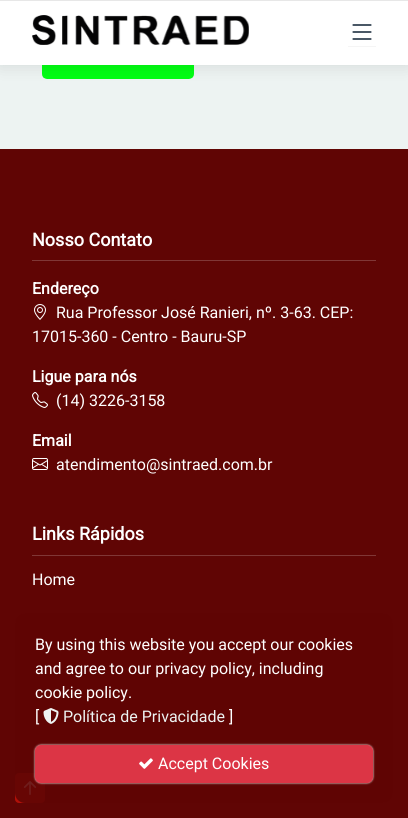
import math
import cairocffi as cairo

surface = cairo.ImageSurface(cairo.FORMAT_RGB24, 408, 818)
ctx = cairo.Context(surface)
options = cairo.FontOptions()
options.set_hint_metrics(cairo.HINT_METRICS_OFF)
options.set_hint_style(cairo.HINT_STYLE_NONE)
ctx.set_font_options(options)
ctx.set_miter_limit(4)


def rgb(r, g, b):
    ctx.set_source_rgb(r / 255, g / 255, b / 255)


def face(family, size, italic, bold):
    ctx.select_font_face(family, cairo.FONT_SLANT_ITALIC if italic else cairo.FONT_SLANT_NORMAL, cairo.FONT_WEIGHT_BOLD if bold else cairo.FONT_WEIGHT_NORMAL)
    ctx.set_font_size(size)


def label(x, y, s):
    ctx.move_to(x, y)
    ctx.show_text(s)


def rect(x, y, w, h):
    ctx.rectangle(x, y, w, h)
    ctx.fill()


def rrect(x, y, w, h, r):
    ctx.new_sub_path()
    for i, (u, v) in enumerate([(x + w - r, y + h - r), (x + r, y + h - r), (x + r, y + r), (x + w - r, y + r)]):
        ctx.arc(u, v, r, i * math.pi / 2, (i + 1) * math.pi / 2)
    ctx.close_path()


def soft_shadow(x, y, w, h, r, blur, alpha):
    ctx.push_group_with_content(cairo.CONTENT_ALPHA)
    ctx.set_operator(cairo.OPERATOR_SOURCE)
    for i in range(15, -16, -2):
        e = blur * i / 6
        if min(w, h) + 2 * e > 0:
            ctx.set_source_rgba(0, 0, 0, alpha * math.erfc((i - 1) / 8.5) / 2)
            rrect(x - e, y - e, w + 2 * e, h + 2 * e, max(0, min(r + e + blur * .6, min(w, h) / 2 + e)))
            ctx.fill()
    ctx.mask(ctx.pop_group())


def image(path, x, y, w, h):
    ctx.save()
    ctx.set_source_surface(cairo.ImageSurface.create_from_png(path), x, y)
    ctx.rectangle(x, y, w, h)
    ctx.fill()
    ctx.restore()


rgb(237, 243, 242)
ctx.paint()
image('image2.png', 42, 65, 152, 14)
rgb(0, 0, 0)
soft_shadow(0, 2, 408, 65, 0, 7.5, 0.1)
rgb(255, 255, 255)
rect(0, 0, 408, 65)
image('image0.png', 32, 15, 217, 30)
rgb(245, 245, 245)
rect(348, 46, 28, 1)
image('image1.png', 352, 24, 20, 16)
rgb(0, 0, 0)
soft_shadow(0, -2, 408, 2, 0, 0.5, 0.4)
rgb(96, 5, 4)
rect(0, 149, 408, 669)
face('Roboto', 18, 0, 1)
rgb(255, 255, 255)
label(32, 246, 'Nosso Contato')
rgb(128, 55, 54)
rect(32, 260, 344, 1)
face('Roboto', 16, 0, 1)
rgb(255, 255, 255)
label(32, 294, 'Endereço')
image('image3.png', 34, 304, 12, 16)
face('Roboto', 16, 0, 0)
label(56, 318, 'Rua Professor José Ranieri, nº. 3-63. CEP:')
label(32, 342, '17015-360 - Centro - Bauru-SP')
face('Roboto', 16, 0, 1)
label(32, 382, 'Ligue para nós')
image('image4.png', 32, 392, 16, 16)
face('Roboto', 16, 0, 0)
label(56, 406, '(14) 3226-3158')
face('Roboto', 16, 0, 1)
label(32, 446, 'Email')
image('image5.png', 32, 458, 16, 12)
face('Roboto', 16, 0, 0)
label(56, 470, 'atendimento@sintraed.com.br')
face('Roboto', 18, 0, 1)
label(32, 540, 'Links Rápidos')
rgb(128, 55, 54)
rect(32, 555, 344, 1)
face('Roboto', 16, 0, 0)
rgb(255, 255, 255)
label(32, 585, 'Home')
rgb(177, 16, 8)
rrect(15, 773, 30, 30, 4)
ctx.fill()
image('image8.png', 23, 781, 14, 14)
ctx.set_source_rgba(0.376, 0.02, 0.016, 0.9)
rrect(15, 613, 378, 190, 10)
ctx.fill()
rgb(255, 255, 255)
label(35, 650, 'By using this website you accept our cookies')
label(35, 674, 'and agree to our privacy policy, including')
label(35, 698, 'cookie policy.')
label(35, 722, '[')
image('image6.png', 43, 708, 16, 16)
rgb(237, 243, 242)
label(63, 722, 'Política de Privacidade')
rgb(255, 255, 255)
label(229, 722, ']')
rgb(255, 255, 255)
soft_shadow(35, 745, 338, 38, 6, 1, 1)
rgb(220, 53, 69)
rrect(35.5, 745.5, 337, 37, 5.5)
ctx.fill_preserve()
ctx.set_line_width(1)
ctx.stroke()
image('image7.png', 139, 758, 14, 11)
rgb(255, 255, 255)
label(158, 769, 'Accept Cookies')
surface.write_to_png('render.png')
